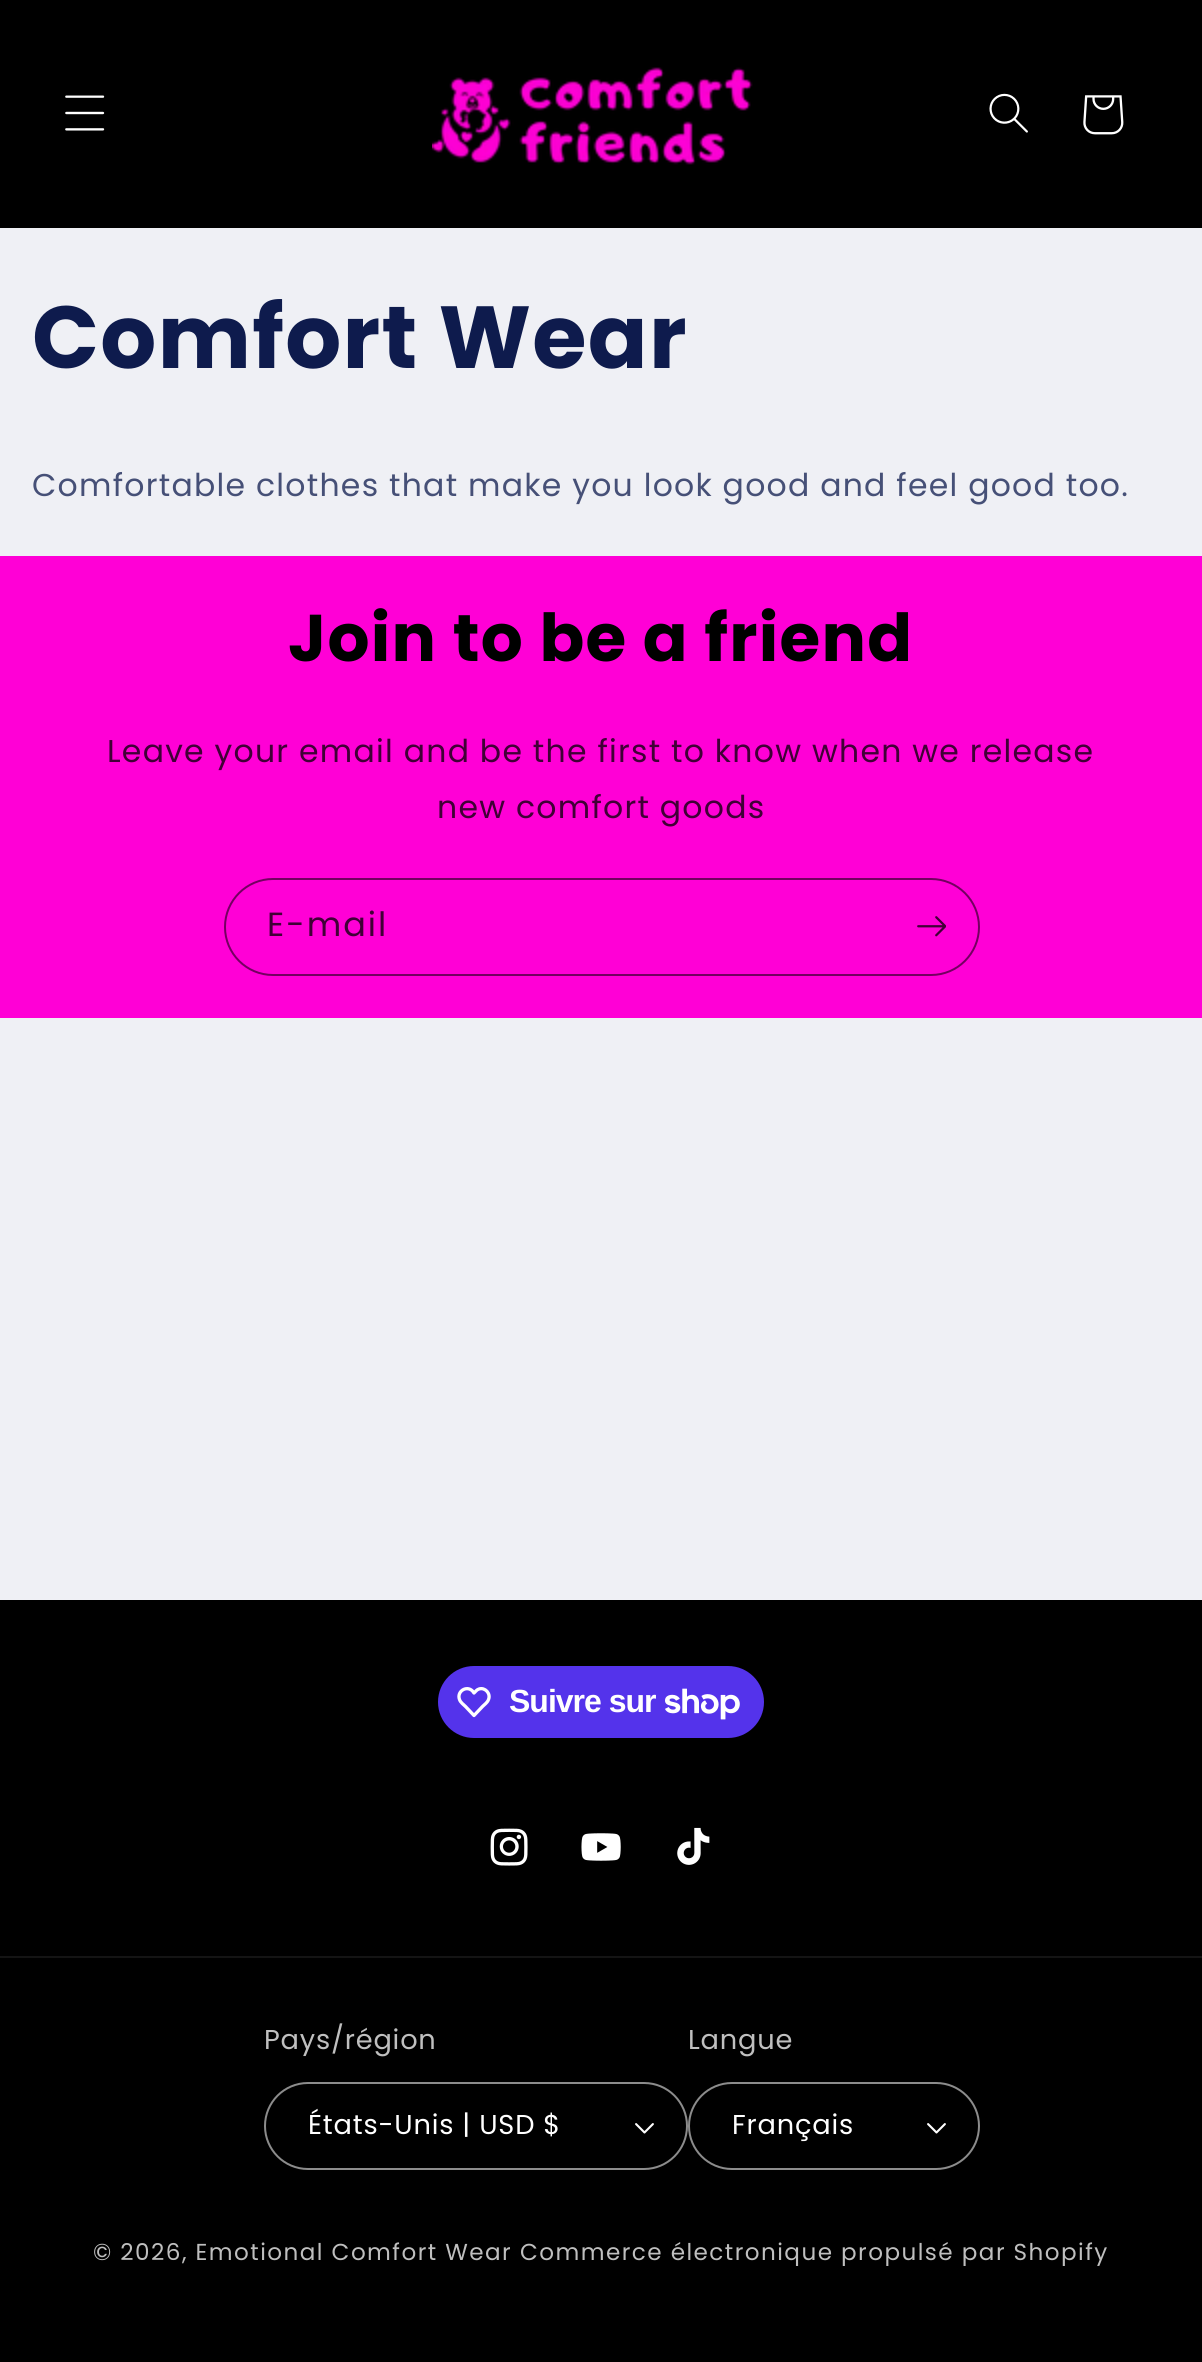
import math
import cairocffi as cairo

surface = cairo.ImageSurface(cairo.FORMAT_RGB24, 1202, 2362)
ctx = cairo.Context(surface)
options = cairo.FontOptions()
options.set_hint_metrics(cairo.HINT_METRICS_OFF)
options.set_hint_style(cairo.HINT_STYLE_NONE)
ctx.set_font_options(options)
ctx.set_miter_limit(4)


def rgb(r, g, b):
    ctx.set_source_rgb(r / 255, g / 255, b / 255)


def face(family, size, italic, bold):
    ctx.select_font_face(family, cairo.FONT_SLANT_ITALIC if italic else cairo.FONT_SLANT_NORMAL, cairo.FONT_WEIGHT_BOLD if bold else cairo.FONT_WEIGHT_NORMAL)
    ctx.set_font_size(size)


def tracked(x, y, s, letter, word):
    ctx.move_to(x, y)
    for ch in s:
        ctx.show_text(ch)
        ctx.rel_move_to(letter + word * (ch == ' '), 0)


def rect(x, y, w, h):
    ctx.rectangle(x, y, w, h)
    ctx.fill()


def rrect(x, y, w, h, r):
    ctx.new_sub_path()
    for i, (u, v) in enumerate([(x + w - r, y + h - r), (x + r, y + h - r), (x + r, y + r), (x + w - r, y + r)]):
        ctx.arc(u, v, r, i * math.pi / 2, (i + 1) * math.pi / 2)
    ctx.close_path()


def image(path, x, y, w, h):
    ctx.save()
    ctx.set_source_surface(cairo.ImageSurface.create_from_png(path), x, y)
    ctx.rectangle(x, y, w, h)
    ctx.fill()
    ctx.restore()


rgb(239, 240, 245)
ctx.paint()
rgb(0, 0, 0)
rect(0, 0, 1202, 228)
image('image0.png', 65, 95, 40, 36)
image('image1.png', 432, 67, 321, 98)
image('image2.png', 989, 93, 39, 40)
image('image3.png', 1083, 95, 41, 40)
face('Poppins', 88, 0, 1)
rgb(14, 27, 77)
tracked(32, 368, 'Comfort Wear', 1.3, 0)
face('Poppins', 31.5, 0, 0)
rgb(70, 80, 119)
tracked(32, 496, 'Comfortable clothes that make you look good and feel good too.', 1.25, 0)
rgb(255, 0, 214)
rect(0, 556, 1202, 462)
face('Poppins', 66, 0, 1)
rgb(0, 0, 0)
tracked(288, 661, 'Join to be a friend', 1.3, 0)
face('Poppins', 31.5, 0, 0)
rgb(64, 0, 54)
tracked(107, 762, 'Leave your email and be the first to know when we release', 1.25, 0)
tracked(437, 818, 'new comfort goods', 1.25, 0)
rrect(225, 879, 754, 96, 48)
rgb(115, 0, 96)
ctx.stroke()
face('Poppins', 33.5, 0, 0)
rgb(64, 0, 54)
tracked(267, 936, 'E-mail', 2, 0)
image('image4.png', 917, 916, 29, 21)
rgb(0, 0, 0)
rect(0, 1600, 1202, 762)
rgb(84, 51, 235)
rrect(438, 1666, 326, 72, 36)
ctx.fill()
ctx.new_path()
ctx.move_to(472.5, 1691)
ctx.line_to(474, 1693)
ctx.curve_to(475.5, 1691.5, 477, 1689.5, 479, 1689)
ctx.curve_to(485, 1687, 491, 1693.5, 488.5, 1699.5)
ctx.curve_to(487.5, 1702.5, 484.5, 1704.5, 482.5, 1706.5)
ctx.line_to(474, 1715.5)
ctx.line_to(465.5, 1706.5)
ctx.curve_to(463.5, 1704.5, 460.5, 1702.5, 459.5, 1699.5)
ctx.curve_to(456.5, 1691.5, 466.5, 1685, 472.5, 1691)
ctx.close_path()
rgb(255, 255, 255)
ctx.set_line_width(3.3)
ctx.set_line_join(cairo.LINE_JOIN_ROUND)
ctx.stroke()
face('Liberation Sans', 32, 0, 1)
tracked(509, 1712, 'Suivre sur', -1, 0)
image('image5.png', 665, 1688, 75, 32)
image('image6.png', 490, 1828, 38, 38)
image('image7.png', 581, 1833, 40, 28)
image('image8.png', 677, 1827, 33, 38)
rgb(20, 20, 20)
rect(0, 1956, 1202, 2)
face('Poppins', 27.25, 0, 0)
rgb(191, 191, 191)
tracked(264, 2049, 'Pays/région', 0.8, 0)
image('image9.png', 635, 2123, 19, 11)
rrect(265, 2083, 422, 86, 43)
rgb(140, 140, 140)
ctx.set_line_width(2)
ctx.set_line_join(cairo.LINE_JOIN_MITER)
ctx.stroke()
rgb(255, 255, 255)
tracked(308, 2134, 'États-Unis | USD $', 0.8, 0)
rgb(191, 191, 191)
tracked(688, 2049, 'Langue', 0.8, 0)
image('image9.png', 927, 2123, 19, 11)
rrect(689, 2083, 290, 86, 43)
rgb(140, 140, 140)
ctx.stroke()
rgb(255, 255, 255)
tracked(732, 2134, 'Français', 0.8, 0)
face('Poppins', 23.1, 0, 0)
rgb(191, 191, 191)
tracked(93, 2260, '© 2026, Emotional Comfort Wear', 1.45, 0)
tracked(520, 2260, 'Commerce électronique propulsé par Shopify', 1.45, 0)
surface.write_to_png('render.png')
